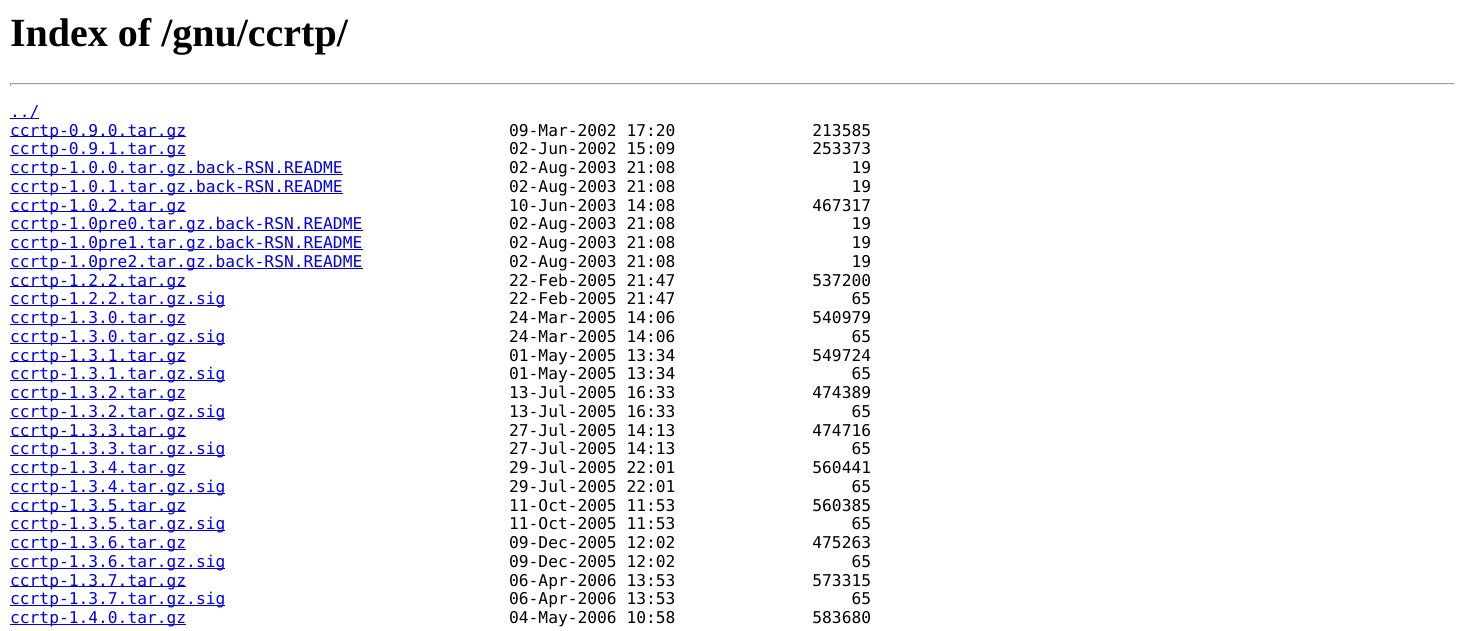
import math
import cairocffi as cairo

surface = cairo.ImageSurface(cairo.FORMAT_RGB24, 1465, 631)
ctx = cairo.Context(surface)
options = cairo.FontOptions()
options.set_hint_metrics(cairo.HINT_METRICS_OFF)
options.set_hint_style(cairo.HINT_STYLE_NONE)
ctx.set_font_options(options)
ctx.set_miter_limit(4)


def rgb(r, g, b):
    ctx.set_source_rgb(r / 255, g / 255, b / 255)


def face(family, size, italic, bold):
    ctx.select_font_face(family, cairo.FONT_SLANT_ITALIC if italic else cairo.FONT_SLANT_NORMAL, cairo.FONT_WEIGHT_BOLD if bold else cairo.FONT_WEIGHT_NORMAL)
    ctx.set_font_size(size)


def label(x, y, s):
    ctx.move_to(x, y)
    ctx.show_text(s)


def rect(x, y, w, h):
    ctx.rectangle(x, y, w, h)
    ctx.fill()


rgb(255, 255, 255)
ctx.paint()
face('Liberation Serif', 40, 0, 1)
rgb(0, 0, 0)
label(10, 46, 'Index of /gnu/ccrtp/')
rgb(159, 159, 159)
rect(10, 83, 1445, 1)
rgb(238, 238, 238)
rect(1454, 83, 1, 3)
rect(10, 84, 1445, 1)
rgb(159, 159, 159)
rect(10, 83, 1, 3)
rgb(0, 0, 238)
rect(10, 118, 29, 1)
face('DejaVu Sans Mono', 16.25, 0, 0)
label(10, 117, '../')
rect(10, 136, 176, 1)
label(10, 136, 'ccrtp-0.9.0.tar.gz')
rgb(0, 0, 0)
label(509, 136, '09-Mar-2002 17:20              213585')
rgb(0, 0, 238)
rect(10, 155, 176, 1)
label(10, 154, 'ccrtp-0.9.1.tar.gz')
rgb(0, 0, 0)
label(509, 154, '02-Jun-2002 15:09              253373')
rgb(0, 0, 238)
rect(10, 174, 333, 1)
label(10, 173, 'ccrtp-1.0.0.tar.gz.back-RSN.README')
rgb(0, 0, 0)
label(509, 173, '02-Aug-2003 21:08                  19')
rgb(0, 0, 238)
rect(10, 193, 333, 1)
label(10, 192, 'ccrtp-1.0.1.tar.gz.back-RSN.README')
rgb(0, 0, 0)
label(509, 192, '02-Aug-2003 21:08                  19')
rgb(0, 0, 238)
rect(10, 211, 176, 1)
label(10, 211, 'ccrtp-1.0.2.tar.gz')
rgb(0, 0, 0)
label(509, 211, '10-Jun-2003 14:08              467317')
rgb(0, 0, 238)
rect(10, 230, 353, 1)
label(10, 229, 'ccrtp-1.0pre0.tar.gz.back-RSN.README')
rgb(0, 0, 0)
label(509, 229, '02-Aug-2003 21:08                  19')
rgb(0, 0, 238)
rect(10, 249, 353, 1)
label(10, 248, 'ccrtp-1.0pre1.tar.gz.back-RSN.README')
rgb(0, 0, 0)
label(509, 248, '02-Aug-2003 21:08                  19')
rgb(0, 0, 238)
rect(10, 268, 353, 1)
label(10, 267, 'ccrtp-1.0pre2.tar.gz.back-RSN.README')
rgb(0, 0, 0)
label(509, 267, '02-Aug-2003 21:08                  19')
rgb(0, 0, 238)
rect(10, 286, 176, 1)
label(10, 286, 'ccrtp-1.2.2.tar.gz')
rgb(0, 0, 0)
label(509, 286, '22-Feb-2005 21:47              537200')
rgb(0, 0, 238)
rect(10, 305, 215, 1)
label(10, 304, 'ccrtp-1.2.2.tar.gz.sig')
rgb(0, 0, 0)
label(509, 304, '22-Feb-2005 21:47                  65')
rgb(0, 0, 238)
rect(10, 324, 176, 1)
label(10, 323, 'ccrtp-1.3.0.tar.gz')
rgb(0, 0, 0)
label(509, 323, '24-Mar-2005 14:06              540979')
rgb(0, 0, 238)
rect(10, 343, 215, 1)
label(10, 342, 'ccrtp-1.3.0.tar.gz.sig')
rgb(0, 0, 0)
label(509, 342, '24-Mar-2005 14:06                  65')
rgb(0, 0, 238)
rect(10, 361, 176, 1)
label(10, 361, 'ccrtp-1.3.1.tar.gz')
rgb(0, 0, 0)
label(509, 361, '01-May-2005 13:34              549724')
rgb(0, 0, 238)
rect(10, 380, 215, 1)
label(10, 379, 'ccrtp-1.3.1.tar.gz.sig')
rgb(0, 0, 0)
label(509, 379, '01-May-2005 13:34                  65')
rgb(0, 0, 238)
rect(10, 399, 176, 1)
label(10, 398, 'ccrtp-1.3.2.tar.gz')
rgb(0, 0, 0)
label(509, 398, '13-Jul-2005 16:33              474389')
rgb(0, 0, 238)
rect(10, 418, 215, 1)
label(10, 417, 'ccrtp-1.3.2.tar.gz.sig')
rgb(0, 0, 0)
label(509, 417, '13-Jul-2005 16:33                  65')
rgb(0, 0, 238)
rect(10, 436, 176, 1)
label(10, 436, 'ccrtp-1.3.3.tar.gz')
rgb(0, 0, 0)
label(509, 436, '27-Jul-2005 14:13              474716')
rgb(0, 0, 238)
rect(10, 455, 215, 1)
label(10, 454, 'ccrtp-1.3.3.tar.gz.sig')
rgb(0, 0, 0)
label(509, 454, '27-Jul-2005 14:13                  65')
rgb(0, 0, 238)
rect(10, 474, 176, 1)
label(10, 473, 'ccrtp-1.3.4.tar.gz')
rgb(0, 0, 0)
label(509, 473, '29-Jul-2005 22:01              560441')
rgb(0, 0, 238)
rect(10, 493, 215, 1)
label(10, 492, 'ccrtp-1.3.4.tar.gz.sig')
rgb(0, 0, 0)
label(509, 492, '29-Jul-2005 22:01                  65')
rgb(0, 0, 238)
rect(10, 511, 176, 1)
label(10, 511, 'ccrtp-1.3.5.tar.gz')
rgb(0, 0, 0)
label(509, 511, '11-Oct-2005 11:53              560385')
rgb(0, 0, 238)
rect(10, 530, 215, 1)
label(10, 529, 'ccrtp-1.3.5.tar.gz.sig')
rgb(0, 0, 0)
label(509, 529, '11-Oct-2005 11:53                  65')
rgb(0, 0, 238)
rect(10, 549, 176, 1)
label(10, 548, 'ccrtp-1.3.6.tar.gz')
rgb(0, 0, 0)
label(509, 548, '09-Dec-2005 12:02              475263')
rgb(0, 0, 238)
rect(10, 568, 215, 1)
label(10, 567, 'ccrtp-1.3.6.tar.gz.sig')
rgb(0, 0, 0)
label(509, 567, '09-Dec-2005 12:02                  65')
rgb(0, 0, 238)
rect(10, 586, 176, 1)
label(10, 586, 'ccrtp-1.3.7.tar.gz')
rgb(0, 0, 0)
label(509, 586, '06-Apr-2006 13:53              573315')
rgb(0, 0, 238)
rect(10, 605, 215, 1)
label(10, 604, 'ccrtp-1.3.7.tar.gz.sig')
rgb(0, 0, 0)
label(509, 604, '06-Apr-2006 13:53                  65')
rgb(0, 0, 238)
rect(10, 624, 176, 1)
label(10, 623, 'ccrtp-1.4.0.tar.gz')
rgb(0, 0, 0)
label(509, 623, '04-May-2006 10:58              583680')
surface.write_to_png('render.png')
